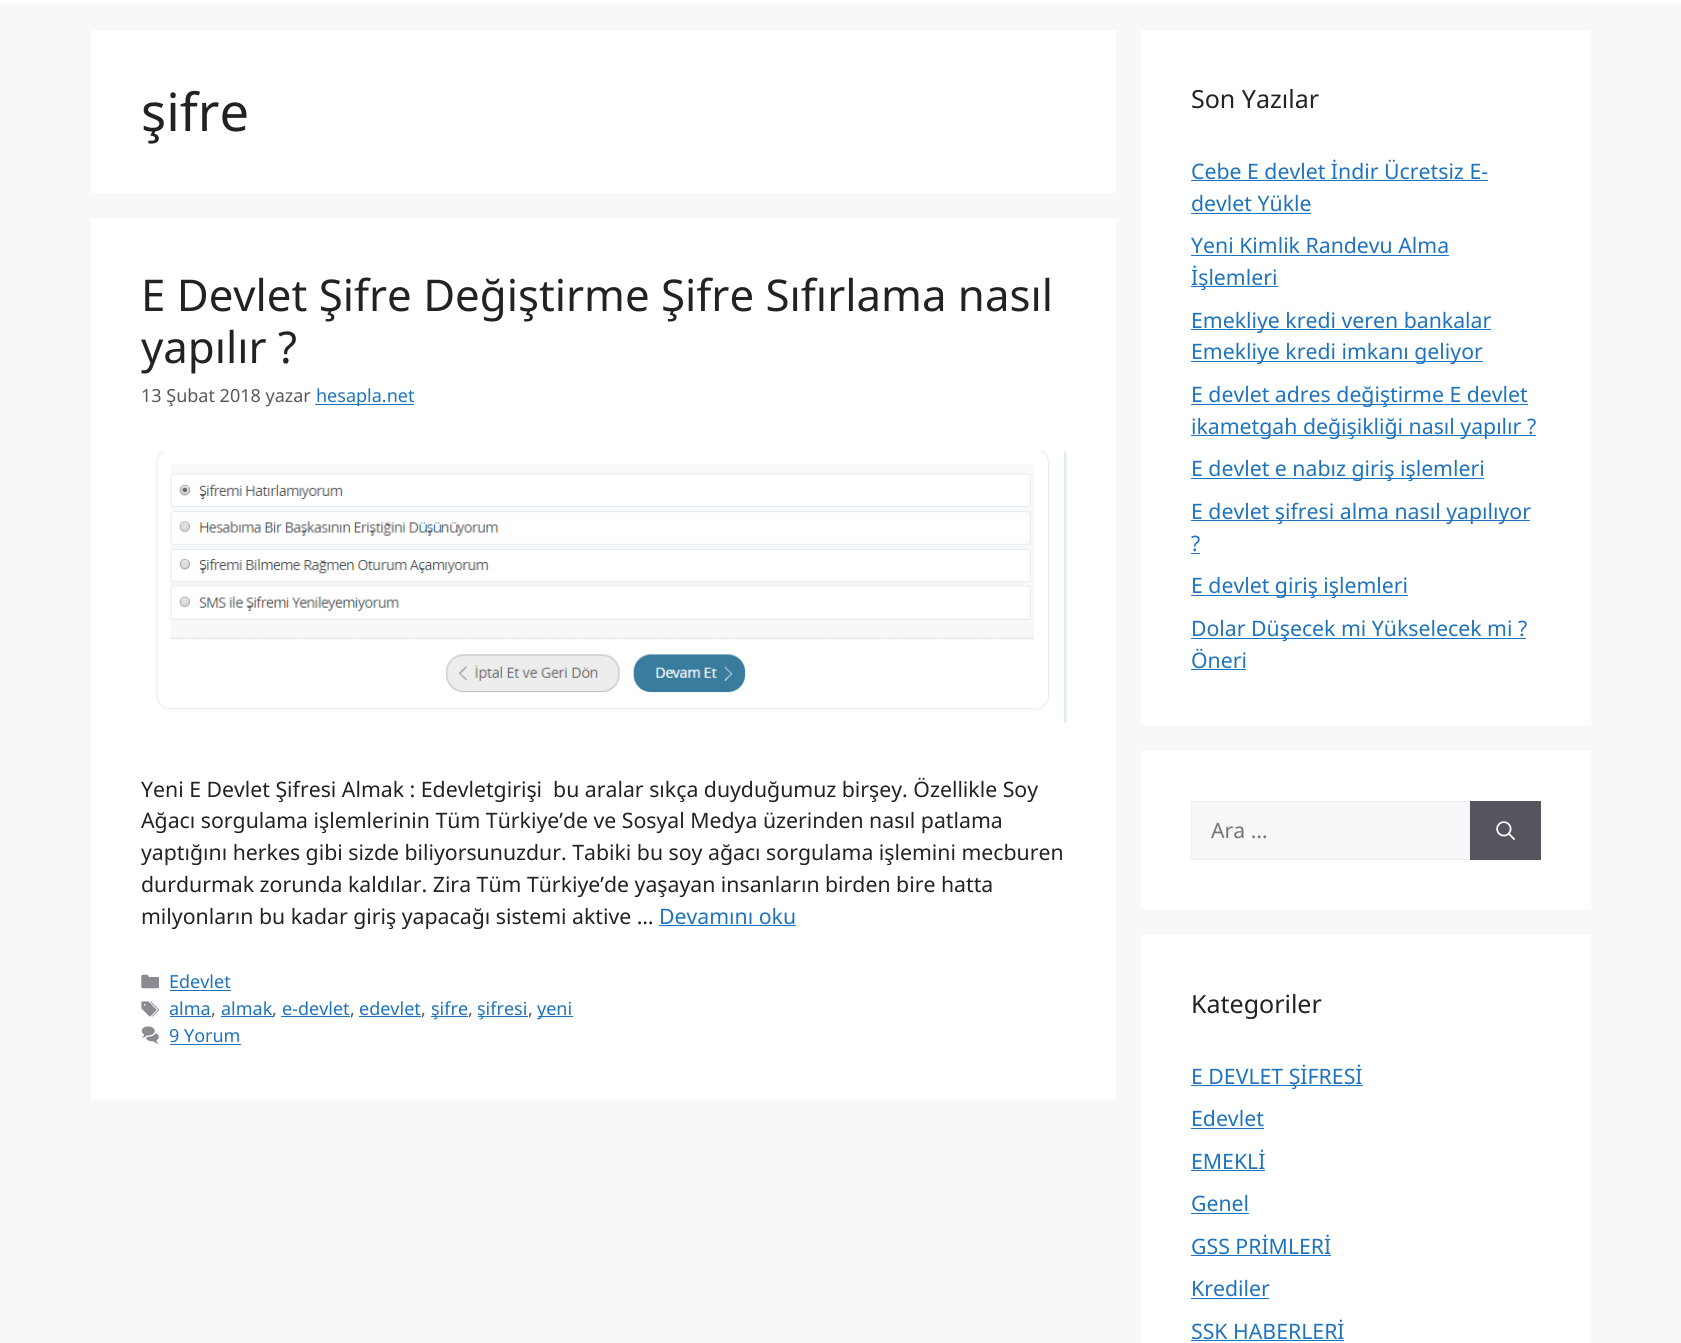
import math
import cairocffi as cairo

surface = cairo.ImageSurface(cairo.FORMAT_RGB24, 1681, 1343)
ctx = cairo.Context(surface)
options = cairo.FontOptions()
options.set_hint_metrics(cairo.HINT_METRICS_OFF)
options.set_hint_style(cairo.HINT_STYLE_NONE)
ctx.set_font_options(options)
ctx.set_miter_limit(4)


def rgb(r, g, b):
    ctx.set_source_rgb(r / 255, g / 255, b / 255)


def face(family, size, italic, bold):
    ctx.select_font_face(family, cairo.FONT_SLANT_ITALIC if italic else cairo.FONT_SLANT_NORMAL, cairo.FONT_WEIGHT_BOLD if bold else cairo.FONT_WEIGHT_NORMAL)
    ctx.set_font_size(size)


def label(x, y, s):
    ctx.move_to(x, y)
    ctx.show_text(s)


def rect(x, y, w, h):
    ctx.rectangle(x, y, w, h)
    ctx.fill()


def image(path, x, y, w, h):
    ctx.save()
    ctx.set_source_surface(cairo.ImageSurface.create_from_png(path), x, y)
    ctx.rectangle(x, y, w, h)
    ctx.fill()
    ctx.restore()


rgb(247, 248, 249)
ctx.paint()
rgb(255, 255, 255)
rect(0, 0, 1681, 5)
rect(91, 30, 1025, 163)
face('Noto Sans', 52.5, 0, 0)
rgb(34, 34, 34)
label(141, 131, 'şifre')
rgb(255, 255, 255)
rect(91, 218, 1025, 882)
face('Noto Sans', 43.75, 0, 0)
rgb(34, 34, 34)
label(141, 311, 'E Devlet Şifre Değiştirme Şifre Sıfırlama nasıl')
label(141, 363, 'yapılır ?')
face('Noto Sans', 18, 0, 0)
rgb(87, 87, 96)
label(141, 402, '13 Şubat 2018 yazar')
rgb(30, 115, 190)
rect(315, 404, 99, 1)
label(316, 402, 'hesapla.net')
image('image0.png', 156, 451, 911, 272)
face('Noto Sans', 21.25, 0, 0)
rgb(34, 34, 34)
label(141, 797, 'Yeni E Devlet Şifresi Almak : Edevletgirişi  bu aralar sıkça duyduğumuz birşey. Özellikle Soy')
label(141, 828, 'Ağacı sorgulama işlemlerinin Tüm Türkiye’de ve Sosyal Medya üzerinden nasıl patlama')
label(141, 860, 'yaptığını herkes gibi sizde biliyorsunuzdur. Tabiki bu soy ağacı sorgulama işlemini mecburen')
label(141, 892, 'durdurmak zorunda kaldılar. Zira Tüm Türkiye’de yaşayan insanların birden bire hatta')
label(141, 924, 'milyonların bu kadar giriş yapacağı sistemi aktive …')
rgb(30, 115, 190)
label(659, 924, 'Devamını oku')
rect(659, 925, 137, 1)
image('image1.png', 141, 974, 18, 15)
face('Noto Sans', 18, 0, 0)
label(169, 988, 'Edevlet')
rect(170, 990, 61, 1)
image('image2.png', 141, 1001, 18, 16)
label(169, 1015, 'alma')
rect(170, 1016, 41, 1)
rgb(87, 87, 96)
label(211, 1015, ',')
rgb(30, 115, 190)
label(221, 1015, 'almak')
rect(221, 1016, 52, 1)
rgb(87, 87, 96)
label(272, 1015, ',')
rgb(30, 115, 190)
label(282, 1015, 'e-devlet')
rect(281, 1016, 69, 1)
rgb(87, 87, 96)
label(350, 1015, ',')
rgb(30, 115, 190)
label(359, 1015, 'edevlet')
rect(359, 1016, 62, 1)
rgb(87, 87, 96)
label(421, 1015, ',')
rgb(30, 115, 190)
rect(431, 1016, 37, 1)
label(431, 1015, 'şifre')
rgb(87, 87, 96)
label(468, 1015, ',')
rgb(30, 115, 190)
rect(478, 1016, 50, 1)
label(477, 1015, 'şifresi')
rgb(87, 87, 96)
label(528, 1015, ',')
rgb(30, 115, 190)
rect(538, 1016, 35, 1)
label(537, 1015, 'yeni')
image('image3.png', 141, 1026, 18, 18)
label(169, 1042, '9 Yorum')
rect(170, 1044, 71, 1)
rgb(255, 255, 255)
rect(1141, 30, 450, 696)
face('Noto Sans', 25, 0, 0)
rgb(34, 34, 34)
label(1191, 108, 'Son Yazılar')
face('Noto Sans', 21.25, 0, 0)
rgb(30, 115, 190)
label(1191, 179, 'Cebe E devlet İndir Ücretsiz E-')
rect(1191, 180, 297, 1)
label(1191, 211, 'devlet Yükle')
rect(1191, 213, 120, 1)
label(1191, 253, 'Yeni Kimlik Randevu Alma')
rect(1191, 255, 258, 1)
rect(1191, 286, 87, 1)
label(1191, 285, 'İşlemleri')
rect(1191, 329, 300, 1)
label(1191, 328, 'Emekliye kredi veren bankalar')
rect(1191, 361, 292, 1)
label(1191, 359, 'Emekliye kredi imkanı geliyor')
rect(1191, 404, 337, 1)
label(1191, 402, 'E devlet adres değiştirme E devlet')
rect(1191, 435, 345, 1)
label(1191, 434, 'ikametgah değişikliği nasıl yapılır ?')
rect(1191, 478, 293, 1)
label(1191, 476, 'E devlet e nabız giriş işlemleri')
rect(1191, 520, 339, 1)
label(1191, 519, 'E devlet şifresi alma nasıl yapılıyor')
label(1191, 551, '?')
rect(1191, 553, 9, 1)
rect(1191, 595, 217, 1)
label(1191, 593, 'E devlet giriş işlemleri')
rect(1191, 638, 335, 1)
label(1191, 636, 'Dolar Düşecek mi Yükselecek mi ?')
label(1191, 668, 'Öneri')
rect(1191, 669, 55, 1)
rgb(255, 255, 255)
rect(1141, 751, 450, 159)
rgb(247, 248, 249)
ctx.rectangle(1191.5, 801.5, 278, 58)
ctx.fill_preserve()
rgb(240, 240, 240)
ctx.set_line_width(1)
ctx.stroke()
rgb(117, 117, 117)
label(1211, 838, 'Ara …')
rgb(85, 85, 94)
rect(1470, 801, 71, 59)
image('image4.png', 1496, 821, 19, 19)
rgb(255, 255, 255)
rect(1141, 935, 450, 408)
face('Noto Sans', 25, 0, 0)
rgb(34, 34, 34)
label(1191, 1013, 'Kategoriler')
rgb(30, 115, 190)
rect(1191, 1085, 172, 1)
face('Noto Sans', 21.25, 0, 0)
label(1191, 1084, 'E DEVLET ŞİFRESİ')
label(1191, 1126, 'Edevlet')
rect(1191, 1128, 73, 1)
label(1191, 1169, 'EMEKLİ')
rect(1191, 1170, 74, 1)
label(1191, 1211, 'Genel')
rect(1191, 1213, 58, 1)
label(1191, 1254, 'GSS PRİMLERİ')
rect(1191, 1255, 140, 1)
label(1191, 1296, 'Krediler')
rect(1191, 1298, 78, 1)
label(1191, 1339, 'SSK HABERLERİ')
rect(1191, 1340, 153, 1)
surface.write_to_png('render.png')
